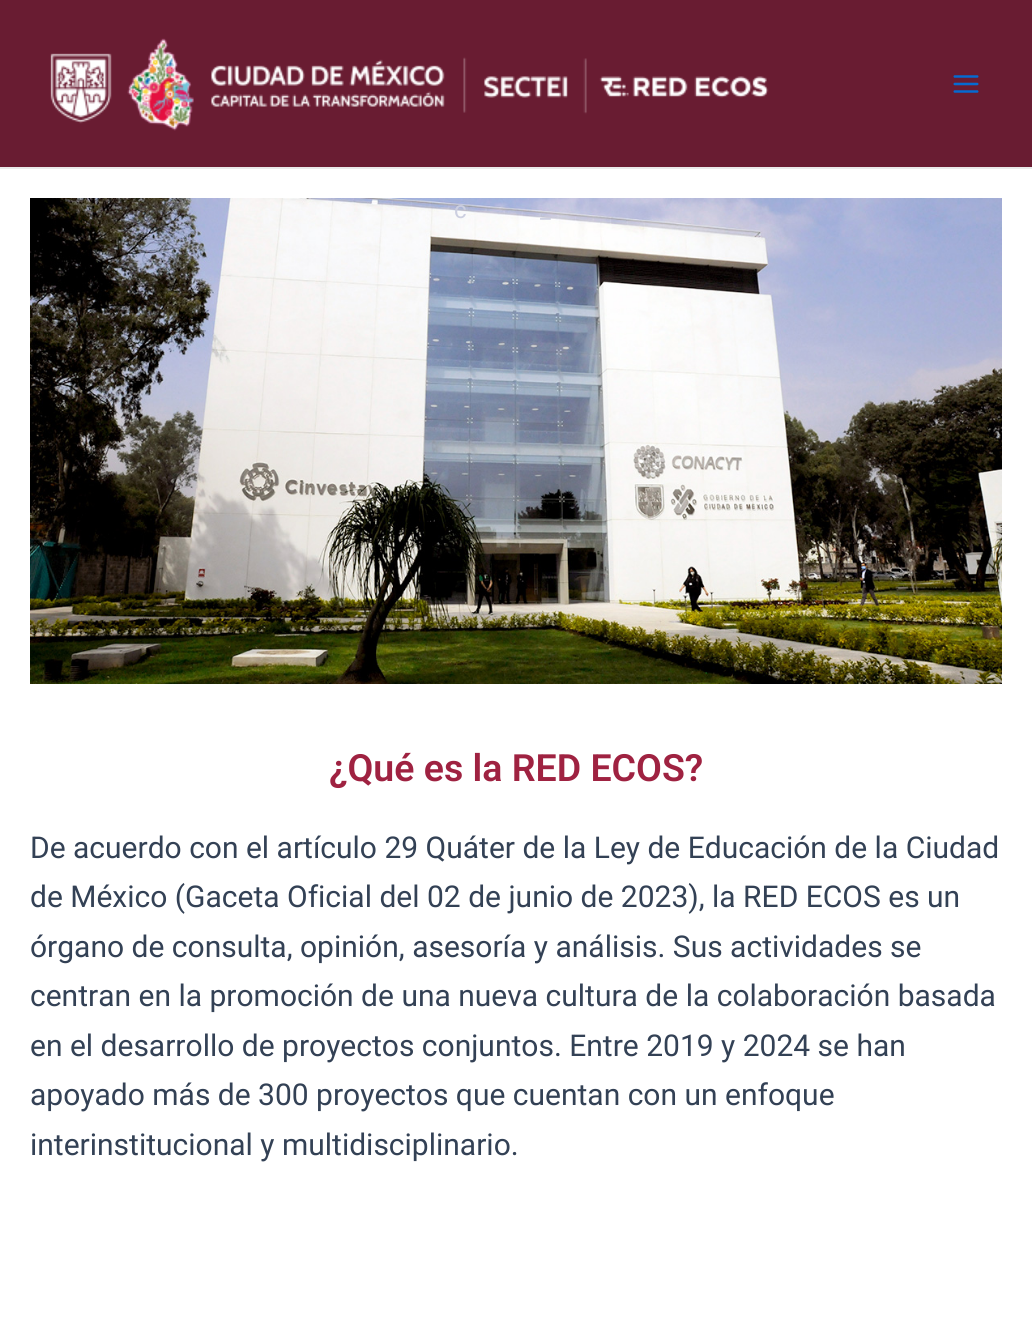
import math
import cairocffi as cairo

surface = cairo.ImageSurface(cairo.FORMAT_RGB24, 1032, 1320)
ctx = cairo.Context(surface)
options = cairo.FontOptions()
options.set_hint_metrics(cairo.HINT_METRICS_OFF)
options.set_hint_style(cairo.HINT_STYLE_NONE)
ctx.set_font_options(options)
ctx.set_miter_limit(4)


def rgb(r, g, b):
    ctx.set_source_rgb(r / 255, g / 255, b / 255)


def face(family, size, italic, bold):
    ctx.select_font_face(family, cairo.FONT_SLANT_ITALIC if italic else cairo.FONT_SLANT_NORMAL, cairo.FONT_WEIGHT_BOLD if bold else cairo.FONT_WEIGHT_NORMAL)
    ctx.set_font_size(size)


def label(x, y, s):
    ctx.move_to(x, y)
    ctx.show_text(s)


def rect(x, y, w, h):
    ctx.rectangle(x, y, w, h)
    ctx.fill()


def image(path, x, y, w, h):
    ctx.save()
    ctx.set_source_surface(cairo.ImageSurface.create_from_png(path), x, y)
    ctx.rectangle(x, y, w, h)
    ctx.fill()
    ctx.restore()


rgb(255, 255, 255)
ctx.paint()
rgb(105, 28, 50)
rect(0, 0, 1032, 167)
rgb(234, 234, 234)
rect(0, 167, 1032, 2)
image('image0.png', 50, 38, 719, 93)
image('image1.png', 953, 75, 26, 18)
image('image2.png', 30, 198, 972, 486)
face('Roboto', 24, 0, 0)
rgb(204, 207, 224)
label(454, 218, 'c')
label(540, 218, '_')
face('Roboto SemiBold', 37.5, 0, 0)
rgb(159, 34, 65)
label(329, 781, '¿Qué es la RED ECOS?')
face('Roboto', 30, 0, 0)
rgb(51, 65, 85)
label(30, 858, 'De acuerdo con el artículo 29 Quáter de la Ley de Educación de la Ciudad')
label(30, 907, 'de México (Gaceta Oficial del 02 de junio de 2023), la RED ECOS es un')
label(30, 957, 'órgano de consulta, opinión, asesoría y análisis. Sus actividades se')
label(30, 1006, 'centran en la promoción de una nueva cultura de la colaboración basada')
label(30, 1056, 'en el desarrollo de proyectos conjuntos. Entre 2019 y 2024 se han')
label(30, 1105, 'apoyado más de 300 proyectos que cuentan con un enfoque')
label(30, 1155, 'interinstitucional y multidisciplinario.')
surface.write_to_png('render.png')
